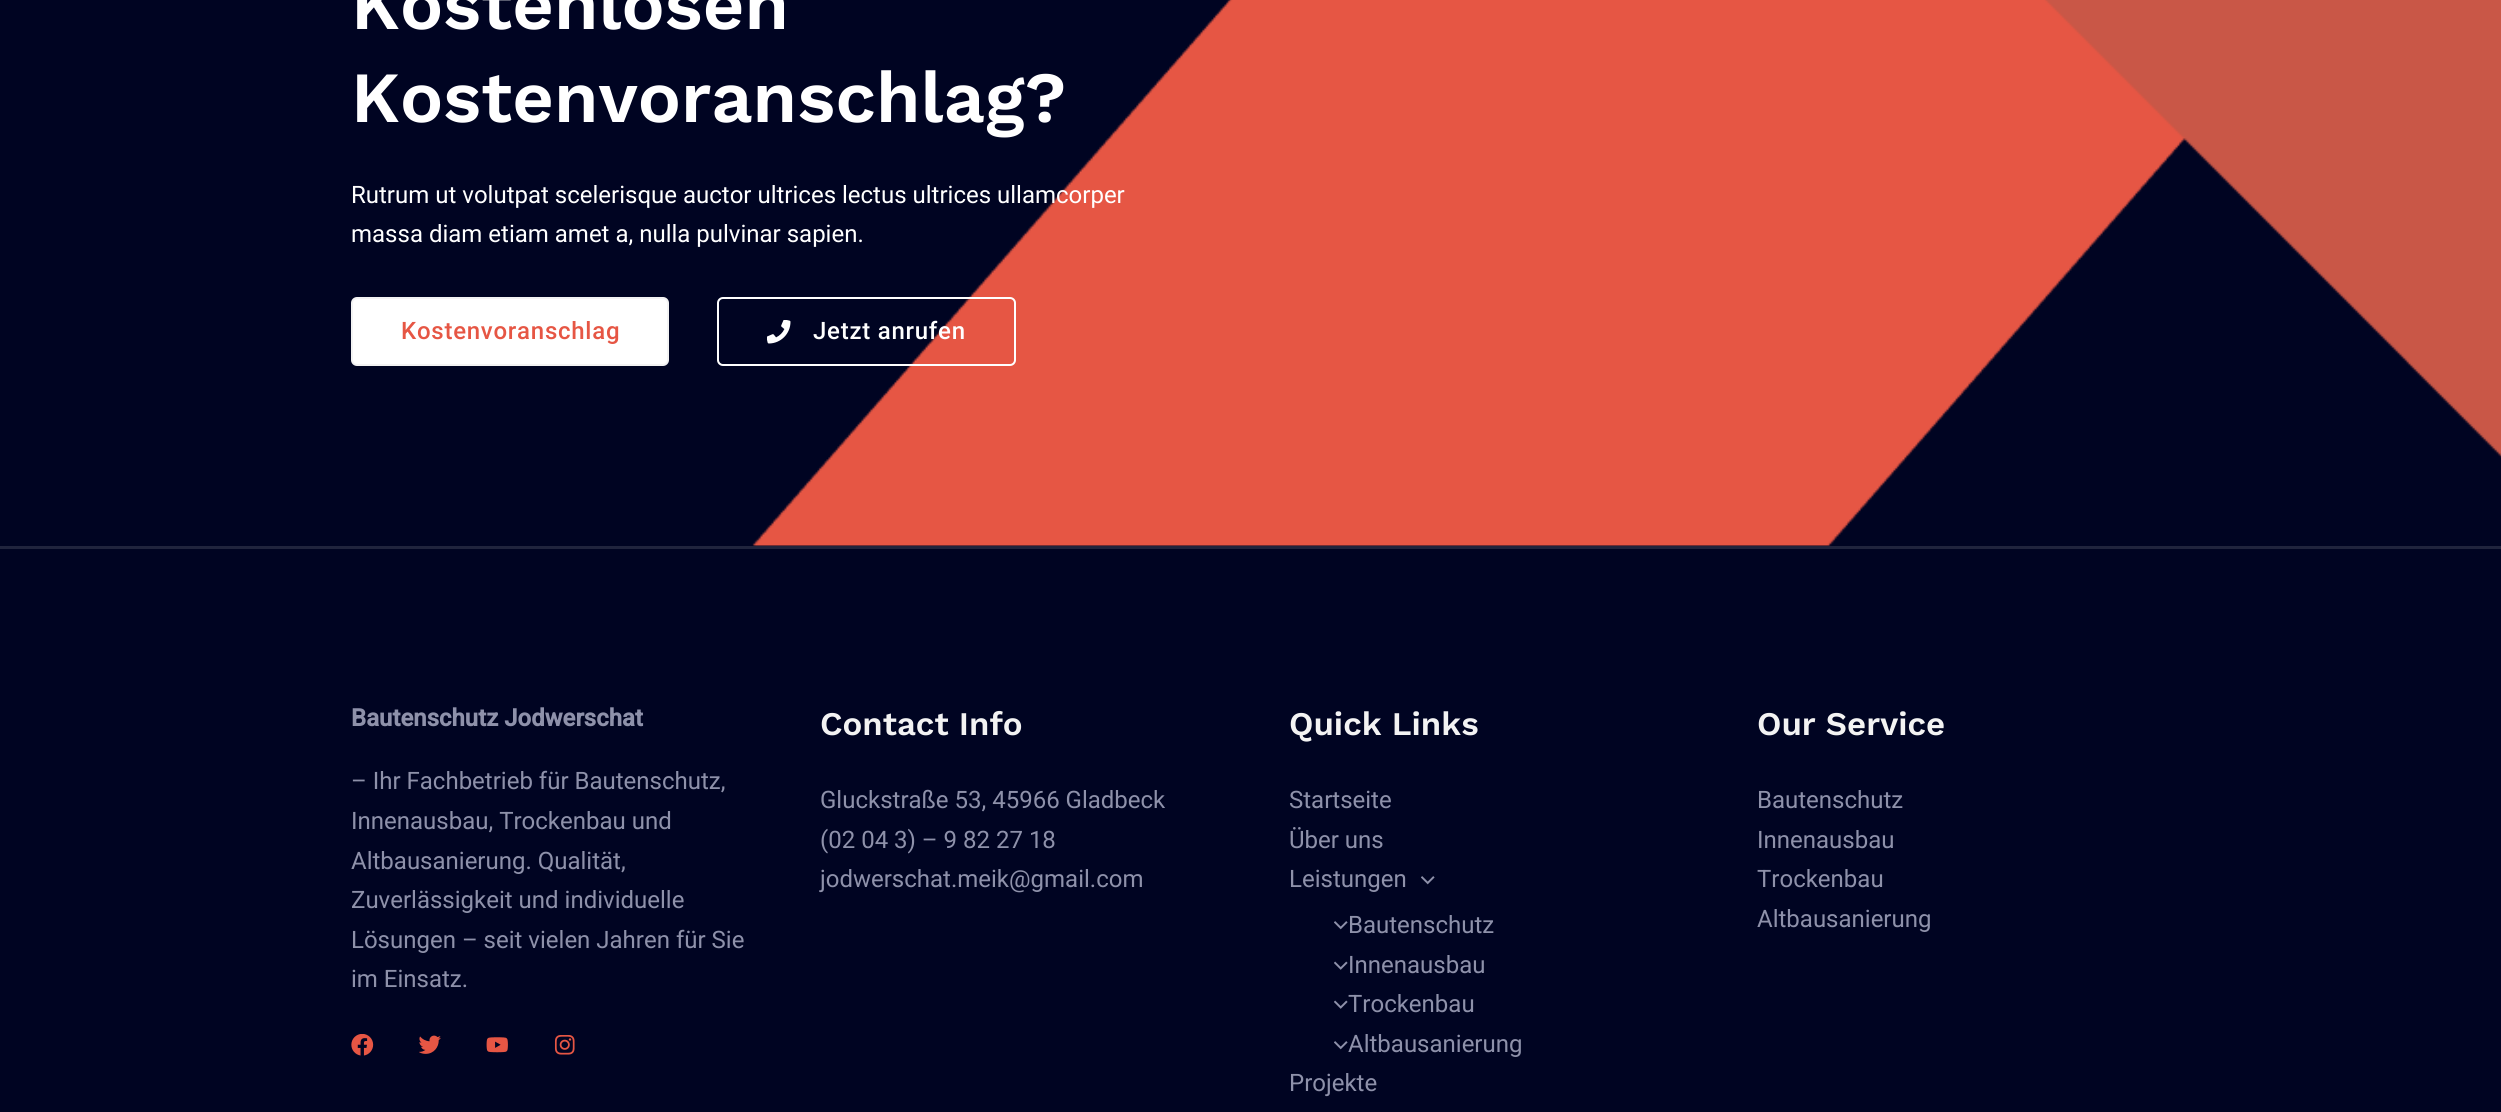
import math
import cairocffi as cairo

surface = cairo.ImageSurface(cairo.FORMAT_RGB24, 2501, 1112)
ctx = cairo.Context(surface)
options = cairo.FontOptions()
options.set_hint_metrics(cairo.HINT_METRICS_OFF)
options.set_hint_style(cairo.HINT_STYLE_NONE)
ctx.set_font_options(options)
ctx.set_miter_limit(4)


def rgb(r, g, b):
    ctx.set_source_rgb(r / 255, g / 255, b / 255)


def face(family, size, italic, bold):
    ctx.select_font_face(family, cairo.FONT_SLANT_ITALIC if italic else cairo.FONT_SLANT_NORMAL, cairo.FONT_WEIGHT_BOLD if bold else cairo.FONT_WEIGHT_NORMAL)
    ctx.set_font_size(size)


def label(x, y, s):
    ctx.move_to(x, y)
    ctx.show_text(s)


def tracked(x, y, s, letter, word):
    ctx.move_to(x, y)
    for ch in s:
        ctx.show_text(ch)
        ctx.rel_move_to(letter + word * (ch == ' '), 0)


def rect(x, y, w, h):
    ctx.rectangle(x, y, w, h)
    ctx.fill()


def rrect(x, y, w, h, r):
    ctx.new_sub_path()
    for i, (u, v) in enumerate([(x + w - r, y + h - r), (x + r, y + h - r), (x + r, y + r), (x + w - r, y + r)]):
        ctx.arc(u, v, r, i * math.pi / 2, (i + 1) * math.pi / 2)
    ctx.close_path()


def image(path, x, y, w, h):
    ctx.save()
    ctx.set_source_surface(cairo.ImageSurface.create_from_png(path), x, y)
    ctx.rectangle(x, y, w, h)
    ctx.fill()
    ctx.restore()


rgb(0, 4, 34)
ctx.paint()
image('image1.png', 752, 0, 1749, 546)
face('Work Sans SemiBold', 72, 0, 0)
rgb(255, 255, 255)
label(351, 29, 'Kostenlosen')
label(351, 122, 'Kostenvoranschlag?')
face('Roboto', 24, 0, 0)
label(351, 203, 'Rutrum ut volutpat scelerisque auctor ultrices lectus ultrices ullamcorper')
label(351, 242, 'massa diam etiam amet a, nulla pulvinar sapien.')
rrect(352, 298, 316, 67, 5)
ctx.fill_preserve()
rgb(243, 243, 243)
ctx.stroke()
face('Roboto Medium', 24, 0, 0)
rgb(230, 86, 68)
tracked(401, 339, 'Kostenvoranschlag', 0.75, 0)
rrect(718, 298, 297, 67, 5)
rgb(255, 255, 255)
ctx.stroke()
image('image0.png', 767, 320, 24, 24)
tracked(813, 339, 'Jetzt anrufen', 0.75, 0)
rgb(32, 36, 61)
rect(0, 546, 2501, 3)
face('Roboto', 24, 0, 1)
rgb(142, 145, 170)
label(351, 726, 'Bautenschutz Jodwerschat')
face('Roboto', 24, 0, 0)
label(351, 789, '– Ihr Fachbetrieb für Bautenschutz,')
label(351, 829, 'Innenausbau, Trockenbau und')
label(351, 869, 'Altbausanierung. Qualität,')
label(351, 908, 'Zuverlässigkeit und individuelle')
label(351, 948, 'Lösungen – seit vielen Jahren für Sie')
label(351, 987, 'im Einsatz.')
image('image2.png', 351, 1034, 23, 22)
image('image3.png', 419, 1035, 22, 19)
image('image4.png', 486, 1037, 22, 16)
image('image5.png', 554, 1035, 21, 20)
face('Work Sans SemiBold', 33, 0, 0)
rgb(243, 243, 243)
label(820, 735, 'Contact Info')
face('Roboto', 24, 0, 0)
rgb(142, 145, 170)
label(820, 808, 'Gluckstraße 53, 45966 Gladbeck')
label(820, 848, '(02 04 3) – 9 82 27 18')
label(820, 887, 'jodwerschat.meik@gmail.com')
face('Work Sans SemiBold', 33, 0, 0)
rgb(243, 243, 243)
label(1289, 735, 'Quick Links')
face('Roboto', 24, 0, 0)
rgb(142, 145, 170)
label(1289, 808, 'Startseite')
label(1289, 848, 'Über uns')
label(1289, 887, 'Leistungen')
image('image6.png', 1421, 876, 14, 9)
image('image6.png', 1334, 921, 14, 9)
label(1348, 933, 'Bautenschutz')
image('image7.png', 1334, 961, 14, 9)
label(1348, 973, 'Innenausbau')
image('image7.png', 1334, 1000, 14, 9)
label(1348, 1012, 'Trockenbau')
image('image6.png', 1334, 1041, 14, 9)
label(1348, 1052, 'Altbausanierung')
label(1289, 1091, 'Projekte')
face('Work Sans SemiBold', 33, 0, 0)
rgb(243, 243, 243)
label(1757, 735, 'Our Service')
face('Roboto', 24, 0, 0)
rgb(142, 145, 170)
label(1757, 808, 'Bautenschutz')
label(1757, 848, 'Innenausbau')
label(1757, 887, 'Trockenbau')
label(1757, 927, 'Altbausanierung')
surface.write_to_png('render.png')
